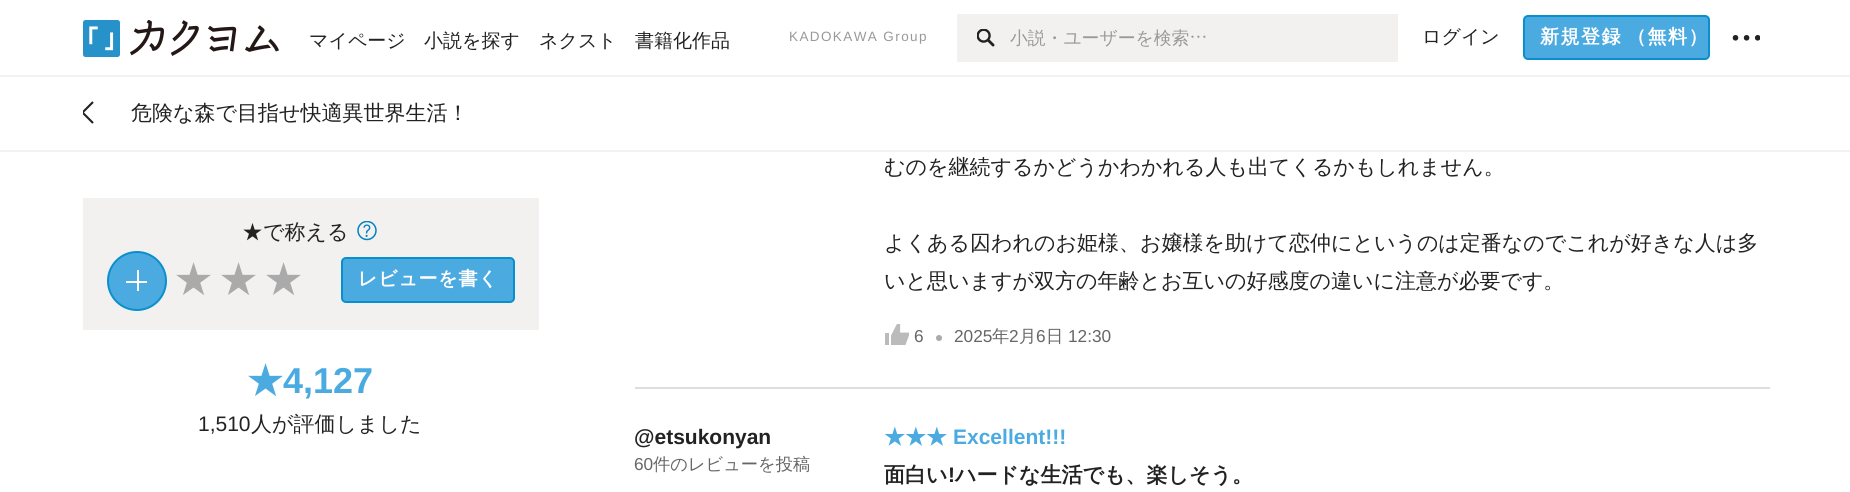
import math
import cairocffi as cairo

surface = cairo.ImageSurface(cairo.FORMAT_RGB24, 1850, 492)
ctx = cairo.Context(surface)
options = cairo.FontOptions()
options.set_hint_metrics(cairo.HINT_METRICS_OFF)
options.set_hint_style(cairo.HINT_STYLE_NONE)
ctx.set_font_options(options)
ctx.set_miter_limit(4)


def rgb(r, g, b):
    ctx.set_source_rgb(r / 255, g / 255, b / 255)


def face(family, size, italic, bold):
    ctx.select_font_face(family, cairo.FONT_SLANT_ITALIC if italic else cairo.FONT_SLANT_NORMAL, cairo.FONT_WEIGHT_BOLD if bold else cairo.FONT_WEIGHT_NORMAL)
    ctx.set_font_size(size)


def label(x, y, s):
    ctx.move_to(x, y)
    ctx.show_text(s)


def tracked(x, y, s, letter, word):
    ctx.move_to(x, y)
    for ch in s:
        ctx.show_text(ch)
        ctx.rel_move_to(letter + word * (ch == ' '), 0)


def rect(x, y, w, h):
    ctx.rectangle(x, y, w, h)
    ctx.fill()


def rrect(x, y, w, h, r):
    ctx.new_sub_path()
    for i, (u, v) in enumerate([(x + w - r, y + h - r), (x + r, y + h - r), (x + r, y + r), (x + w - r, y + r)]):
        ctx.arc(u, v, r, i * math.pi / 2, (i + 1) * math.pi / 2)
    ctx.close_path()


def image(path, x, y, w, h):
    ctx.save()
    ctx.set_source_surface(cairo.ImageSurface.create_from_png(path), x, y)
    ctx.rectangle(x, y, w, h)
    ctx.fill()
    ctx.restore()


rgb(255, 255, 255)
ctx.paint()
rgb(242, 242, 242)
rect(0, 75, 1850, 2)
image('image0.png', 83, 20, 196, 37)
face('WenQuanYi Zen Hei Medium', 19, 0, 0)
rgb(34, 34, 34)
label(309, 47, 'マイページ')
label(424, 47, '小説を探す')
label(539, 47, 'ネクスト')
label(635, 47, '書籍化作品')
face('Liberation Sans', 13.5, 0, 0)
rgb(153, 153, 153)
tracked(789, 41, 'KADOKAWA Group', 1.4, 0)
rgb(242, 241, 240)
rect(957, 14, 441, 48)
image('image1.png', 977, 29, 18, 18)
face('WenQuanYi Zen Hei Medium', 17.8, 0, 0)
rgb(153, 153, 153)
label(1010, 44, '小説・ユーザーを検索')
image('image2.png', 1191, 35, 15, 3)
face('WenQuanYi Zen Hei Medium', 19, 0, 0)
rgb(34, 34, 34)
label(1422, 43, 'ログイン')
rgb(75, 170, 224)
rrect(1524, 16, 185, 43, 4)
ctx.fill_preserve()
rgb(9, 144, 204)
ctx.stroke()
face('WenQuanYi Zen Hei', 19, 0, 1)
rgb(255, 255, 255)
tracked(1540, 43, '新規登録', 1.5, 0)
tracked(1627, 43, '（無料）', 1.5, 0)
rgb(34, 34, 34)
ctx.new_path()
ctx.arc(1735.5, 37.8, 2.8, 0, 2 * math.pi)
ctx.fill()
ctx.arc(1746.6, 37.8, 2.8, 0, 2 * math.pi)
ctx.fill()
ctx.save()
ctx.rectangle(1733, 24, 27, 27)
ctx.clip()
ctx.arc(1757.7, 37.8, 2.8, 0, 2 * math.pi)
ctx.fill()
ctx.restore()
rgb(242, 242, 242)
rect(0, 150, 1850, 2)
ctx.save()
ctx.rectangle(83, 99, 12, 27)
ctx.clip()
ctx.new_path()
ctx.move_to(93, 123)
ctx.line_to(82.5, 112.5)
ctx.line_to(93, 102)
rgb(34, 34, 34)
ctx.set_line_width(2.1)
ctx.stroke()
ctx.restore()
face('WenQuanYi Zen Hei Medium', 21, 0, 0)
rgb(34, 34, 34)
label(131, 120, '危険な森で目指せ快適異世界生活！')
rgb(242, 241, 240)
rect(83, 198, 456, 132)
rgb(34, 34, 34)
label(242, 239, '★で称える')
image('image3.png', 357, 221, 20, 20)
rgb(75, 170, 224)
ctx.arc(137, 281, 29, 0, 2 * math.pi)
ctx.fill_preserve()
rgb(9, 144, 204)
ctx.stroke()
rgb(255, 255, 255)
rect(126, 281, 21, 2)
rect(137, 270, 2, 21)
face('WenQuanYi Zen Hei', 36, 0, 1)
rgb(170, 170, 170)
label(175, 292, '★')
label(220, 292, '★')
label(265, 292, '★')
rgb(75, 170, 224)
rrect(342, 258, 172, 44, 4)
ctx.fill_preserve()
rgb(9, 144, 204)
ctx.stroke()
face('WenQuanYi Zen Hei', 19, 0, 1)
rgb(255, 255, 255)
tracked(358, 285, 'レビューを書く', 0.75, 0)
face('WenQuanYi Zen Hei', 36, 0, 1)
rgb(75, 170, 224)
label(247, 393, '★')
face('Liberation Sans', 36, 0, 1)
label(283, 393, '4,127')
face('Liberation Sans', 21, 0, 0)
rgb(34, 34, 34)
label(198, 431, '1,510')
face('WenQuanYi Zen Hei Medium', 21, 0, 0)
label(251, 431, '人が評価しました')
rgb(221, 221, 221)
rect(635, 387, 1135, 2)
rgb(34, 34, 34)
label(884, 174, 'むのを継続するかどうかわかれる人も出てくるかもしれません。')
label(884, 250, 'よくある囚われのお姫様、お嬢様を助けて恋仲にというのは定番なのでこれが好きな人は多')
label(884, 288, 'いと思いますが双方の年齢とお互いの好感度の違いに注意が必要です。')
image('image4.png', 885, 324, 24, 21)
face('Liberation Sans', 17.25, 0, 0)
rgb(102, 102, 102)
label(914, 342, '6')
rgb(170, 170, 170)
ctx.new_path()
ctx.arc(939, 338, 3, 0, 2 * math.pi)
ctx.fill()
rgb(102, 102, 102)
label(954, 342, '2025')
face('WenQuanYi Zen Hei Medium', 17.25, 0, 0)
label(992, 342, '年')
face('Liberation Sans', 17.25, 0, 0)
label(1009, 342, '2')
face('WenQuanYi Zen Hei Medium', 17.25, 0, 0)
label(1019, 342, '月')
face('Liberation Sans', 17.25, 0, 0)
label(1036, 342, '6')
face('WenQuanYi Zen Hei Medium', 17.25, 0, 0)
label(1046, 342, '日')
face('Liberation Sans', 17.25, 0, 0)
label(1068, 342, '12:30')
face('Liberation Sans', 21, 0, 1)
rgb(34, 34, 34)
label(634, 444, '@etsukonyan')
face('Liberation Sans', 17.25, 0, 0)
rgb(102, 102, 102)
label(634, 470, '60')
face('WenQuanYi Zen Hei Medium', 17.25, 0, 0)
label(653, 470, '件のレビューを投稿')
face('WenQuanYi Zen Hei', 21, 0, 1)
rgb(75, 170, 224)
label(884, 444, '★★★')
face('Liberation Sans', 21, 0, 1)
label(953, 444, 'Excellent!!!')
face('WenQuanYi Zen Hei', 21, 0, 1)
rgb(34, 34, 34)
label(884, 482, '面白い')
face('Liberation Sans', 21, 0, 1)
label(948, 482, '!')
face('WenQuanYi Zen Hei', 21, 0, 1)
label(955, 482, 'ハードな生活でも、楽しそう。')
surface.write_to_png('render.png')
